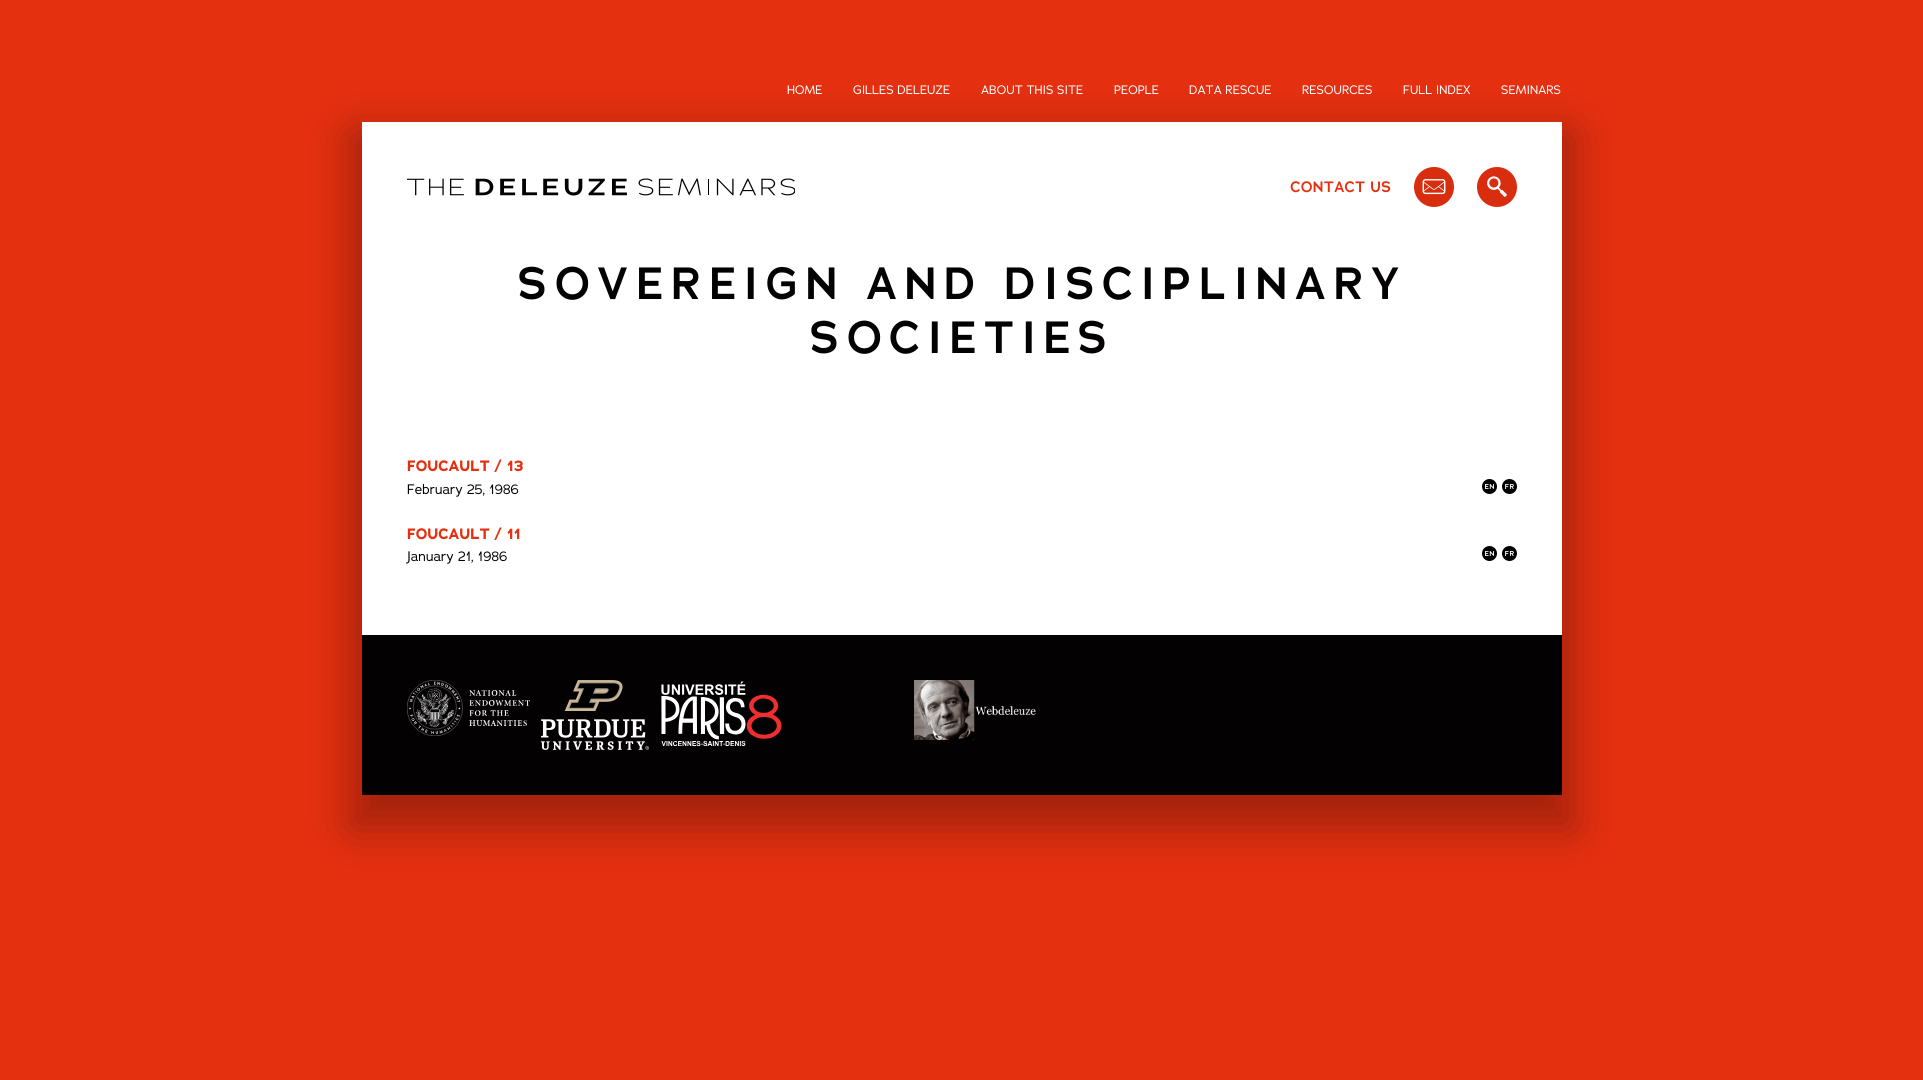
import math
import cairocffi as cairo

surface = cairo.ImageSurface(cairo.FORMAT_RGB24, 1923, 1080)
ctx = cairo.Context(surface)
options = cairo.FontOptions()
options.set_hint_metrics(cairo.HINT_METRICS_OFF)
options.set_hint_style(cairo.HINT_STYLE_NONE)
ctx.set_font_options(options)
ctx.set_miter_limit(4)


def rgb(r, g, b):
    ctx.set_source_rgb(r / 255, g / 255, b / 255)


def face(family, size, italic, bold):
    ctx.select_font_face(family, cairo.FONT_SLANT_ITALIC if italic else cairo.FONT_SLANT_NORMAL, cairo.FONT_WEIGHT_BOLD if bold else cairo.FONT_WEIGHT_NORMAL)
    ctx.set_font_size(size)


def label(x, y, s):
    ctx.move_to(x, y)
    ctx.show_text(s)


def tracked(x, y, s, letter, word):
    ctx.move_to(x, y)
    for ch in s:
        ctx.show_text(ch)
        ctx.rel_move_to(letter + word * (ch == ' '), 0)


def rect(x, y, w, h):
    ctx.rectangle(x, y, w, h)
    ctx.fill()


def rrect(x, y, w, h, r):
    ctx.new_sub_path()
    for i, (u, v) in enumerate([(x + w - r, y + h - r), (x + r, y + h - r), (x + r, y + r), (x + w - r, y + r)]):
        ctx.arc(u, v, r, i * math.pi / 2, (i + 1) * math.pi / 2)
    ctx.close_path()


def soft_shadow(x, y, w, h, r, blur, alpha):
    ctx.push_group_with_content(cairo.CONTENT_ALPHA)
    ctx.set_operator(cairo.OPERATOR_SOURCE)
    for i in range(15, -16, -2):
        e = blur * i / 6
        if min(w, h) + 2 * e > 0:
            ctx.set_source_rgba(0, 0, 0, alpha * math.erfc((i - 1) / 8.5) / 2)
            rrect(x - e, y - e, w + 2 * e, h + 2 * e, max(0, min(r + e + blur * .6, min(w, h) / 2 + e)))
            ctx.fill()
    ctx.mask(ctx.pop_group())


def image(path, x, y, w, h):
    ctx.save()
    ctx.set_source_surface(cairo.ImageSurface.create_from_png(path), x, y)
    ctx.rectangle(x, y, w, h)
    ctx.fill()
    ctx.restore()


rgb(229, 48, 16)
ctx.paint()
rgb(3, 1, 2)
soft_shadow(351, 133, 1222, 696, 0, 22.5, 0.3)
face('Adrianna', 12, 0, 0)
rgb(255, 255, 255)
label(787, 94, 'HOME')
label(853, 94, 'GILLES DELEUZE')
label(981, 94, 'ABOUT THIS SITE')
label(1114, 94, 'PEOPLE')
label(1189, 94, 'DATA RESCUE')
label(1302, 94, 'RESOURCES')
label(1403, 94, 'FULL INDEX')
label(1501, 94, 'SEMINARS')
rect(362, 122, 1200, 513)
image('image0.png', 407, 178, 388, 18)
face('Adrianna SemiBold', 15, 0, 0)
rgb(229, 48, 16)
label(1290, 192, 'CONTACT US')
image('image1.png', 1414, 167, 40, 40)
image('image2.png', 1477, 167, 40, 40)
face('Adrianna SemiBold', 45, 0, 0)
rgb(3, 1, 2)
tracked(517, 299, 'SOVEREIGN AND DISCIPLINARY', 6.75, 0)
tracked(809, 353, 'SOCIETIES', 6.75, 0)
face('Adrianna', 15, 0, 1)
rgb(229, 48, 16)
label(407, 471, 'FOUCAULT / 13')
face('Adrianna', 13.5, 0, 0)
rgb(3, 1, 2)
label(407, 494, 'February 25, 1986')
image('image3.png', 1482, 479, 15, 15)
image('image4.png', 1502, 479, 15, 15)
face('Adrianna', 15, 0, 1)
rgb(229, 48, 16)
label(407, 539, 'FOUCAULT / 11')
face('Adrianna', 13.5, 0, 0)
rgb(3, 1, 2)
label(407, 561, 'January 21, 1986')
image('image3.png', 1482, 546, 15, 15)
image('image4.png', 1502, 546, 15, 15)
rect(362, 635, 1200, 160)
image('image5.png', 407, 680, 123, 56)
image('image6.png', 541, 680, 108, 70)
image('image7.png', 661, 681, 121, 65)
image('image8.png', 914, 680, 122, 60)
surface.write_to_png('render.png')
